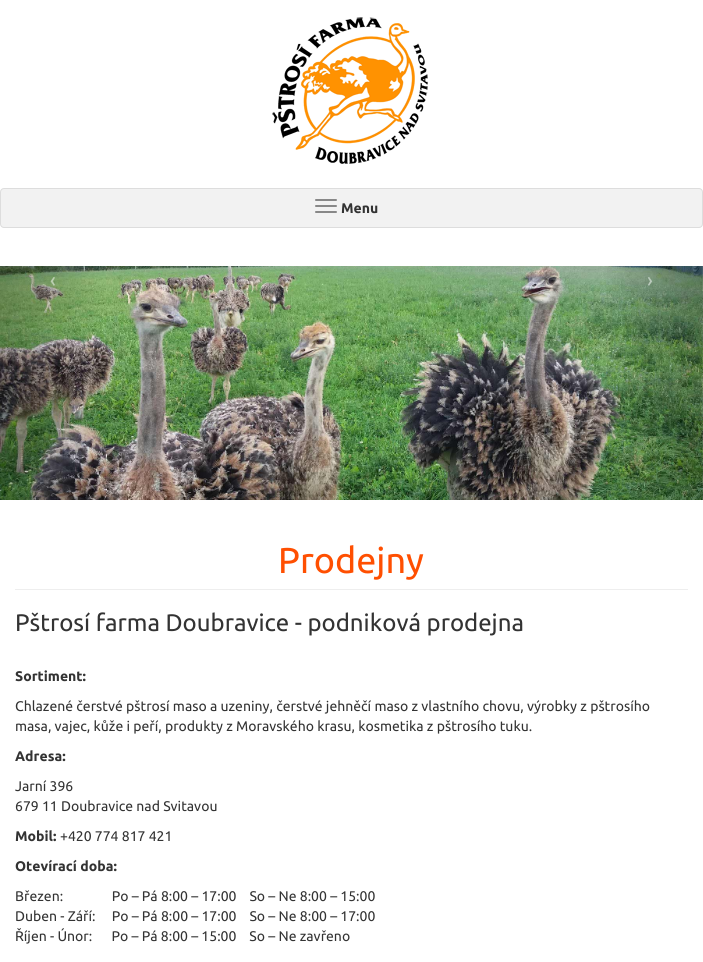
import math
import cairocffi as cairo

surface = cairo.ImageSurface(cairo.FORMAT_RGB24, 703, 962)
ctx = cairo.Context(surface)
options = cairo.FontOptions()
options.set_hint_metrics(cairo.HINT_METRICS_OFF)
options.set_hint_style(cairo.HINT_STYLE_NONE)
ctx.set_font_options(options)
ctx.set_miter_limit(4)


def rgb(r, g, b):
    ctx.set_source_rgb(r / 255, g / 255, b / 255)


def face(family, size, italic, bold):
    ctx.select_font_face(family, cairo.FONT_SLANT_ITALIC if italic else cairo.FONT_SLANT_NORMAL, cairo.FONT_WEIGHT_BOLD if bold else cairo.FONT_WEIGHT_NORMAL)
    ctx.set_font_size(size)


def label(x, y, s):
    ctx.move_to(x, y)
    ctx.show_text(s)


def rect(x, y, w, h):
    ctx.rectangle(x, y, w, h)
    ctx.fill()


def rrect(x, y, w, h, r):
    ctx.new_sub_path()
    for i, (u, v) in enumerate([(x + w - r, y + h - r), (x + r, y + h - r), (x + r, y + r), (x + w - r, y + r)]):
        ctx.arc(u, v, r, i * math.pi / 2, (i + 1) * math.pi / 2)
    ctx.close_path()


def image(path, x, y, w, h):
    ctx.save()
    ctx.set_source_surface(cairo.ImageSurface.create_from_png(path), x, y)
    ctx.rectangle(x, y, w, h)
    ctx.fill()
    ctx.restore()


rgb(255, 255, 255)
ctx.paint()
image('image0.png', 272, 17, 156, 147)
rgb(242, 242, 242)
rrect(0.5, 188.5, 702, 39, 3.5)
ctx.fill_preserve()
rgb(221, 221, 221)
ctx.set_line_width(1)
ctx.stroke()
rgb(136, 136, 136)
rrect(315, 199, 22, 2, 1)
ctx.fill()
rrect(315, 205, 22, 2, 1)
ctx.fill()
rrect(315, 211, 22, 2, 1)
ctx.fill()
face('Ubuntu', 14, 0, 1)
rgb(51, 51, 51)
label(341, 213, 'Menu')
image('image1.png', 0, 266, 703, 234)
face('Ubuntu', 20, 0, 0)
rgb(188, 206, 178)
label(50, 287, '‹')
gradient = cairo.LinearGradient(598, 383, 703, 383)
gradient.add_color_stop_rgba(0, 0, 0, 0, 0)
gradient.add_color_stop_rgba(1, 0, 0, 0, 0.25)
ctx.set_source(gradient)
rect(607, 266, 96, 234)
rgb(186, 201, 188)
label(647, 287, '›')
rgb(238, 238, 238)
rect(15, 589, 673, 1)
face('Ubuntu', 36, 0, 0)
rgb(255, 79, 1)
label(278, 573, 'Prodejny')
face('Ubuntu', 24, 0, 0)
rgb(51, 51, 51)
label(15, 631, 'Pštrosí farma Doubravice - podniková prodejna')
face('Ubuntu', 14, 0, 1)
label(15, 681, 'Sortiment:')
face('Ubuntu', 14, 0, 0)
label(15, 711, 'Chlazené čerstvé pštrosí maso a uzeniny, čerstvé jehněčí maso z vlastního chovu, výrobky z pštrosího')
label(15, 731, 'masa, vajec, kůže i peří, produkty z Moravského krasu, kosmetika z pštrosího tuku.')
face('Ubuntu', 14, 0, 1)
label(15, 761, 'Adresa:')
face('Ubuntu', 14, 0, 0)
label(15, 791, 'Jarní 396')
label(15, 811, '679 11 Doubravice nad Svitavou')
face('Ubuntu', 14, 0, 1)
label(15, 841, 'Mobil:')
face('Ubuntu', 14, 0, 0)
label(60, 841, '+420 774 817 421')
face('Ubuntu', 14, 0, 1)
label(15, 871, 'Otevírací doba:')
face('Ubuntu', 14, 0, 0)
label(15, 901, 'Březen:               Po – Pá 8:00 – 17:00    So – Ne 8:00 – 15:00')
label(15, 921, 'Duben - Září:     Po – Pá 8:00 – 17:00    So – Ne 8:00 – 17:00')
label(15, 941, 'Říjen - Únor:      Po – Pá 8:00 – 15:00    So – Ne zavřeno')
surface.write_to_png('render.png')
